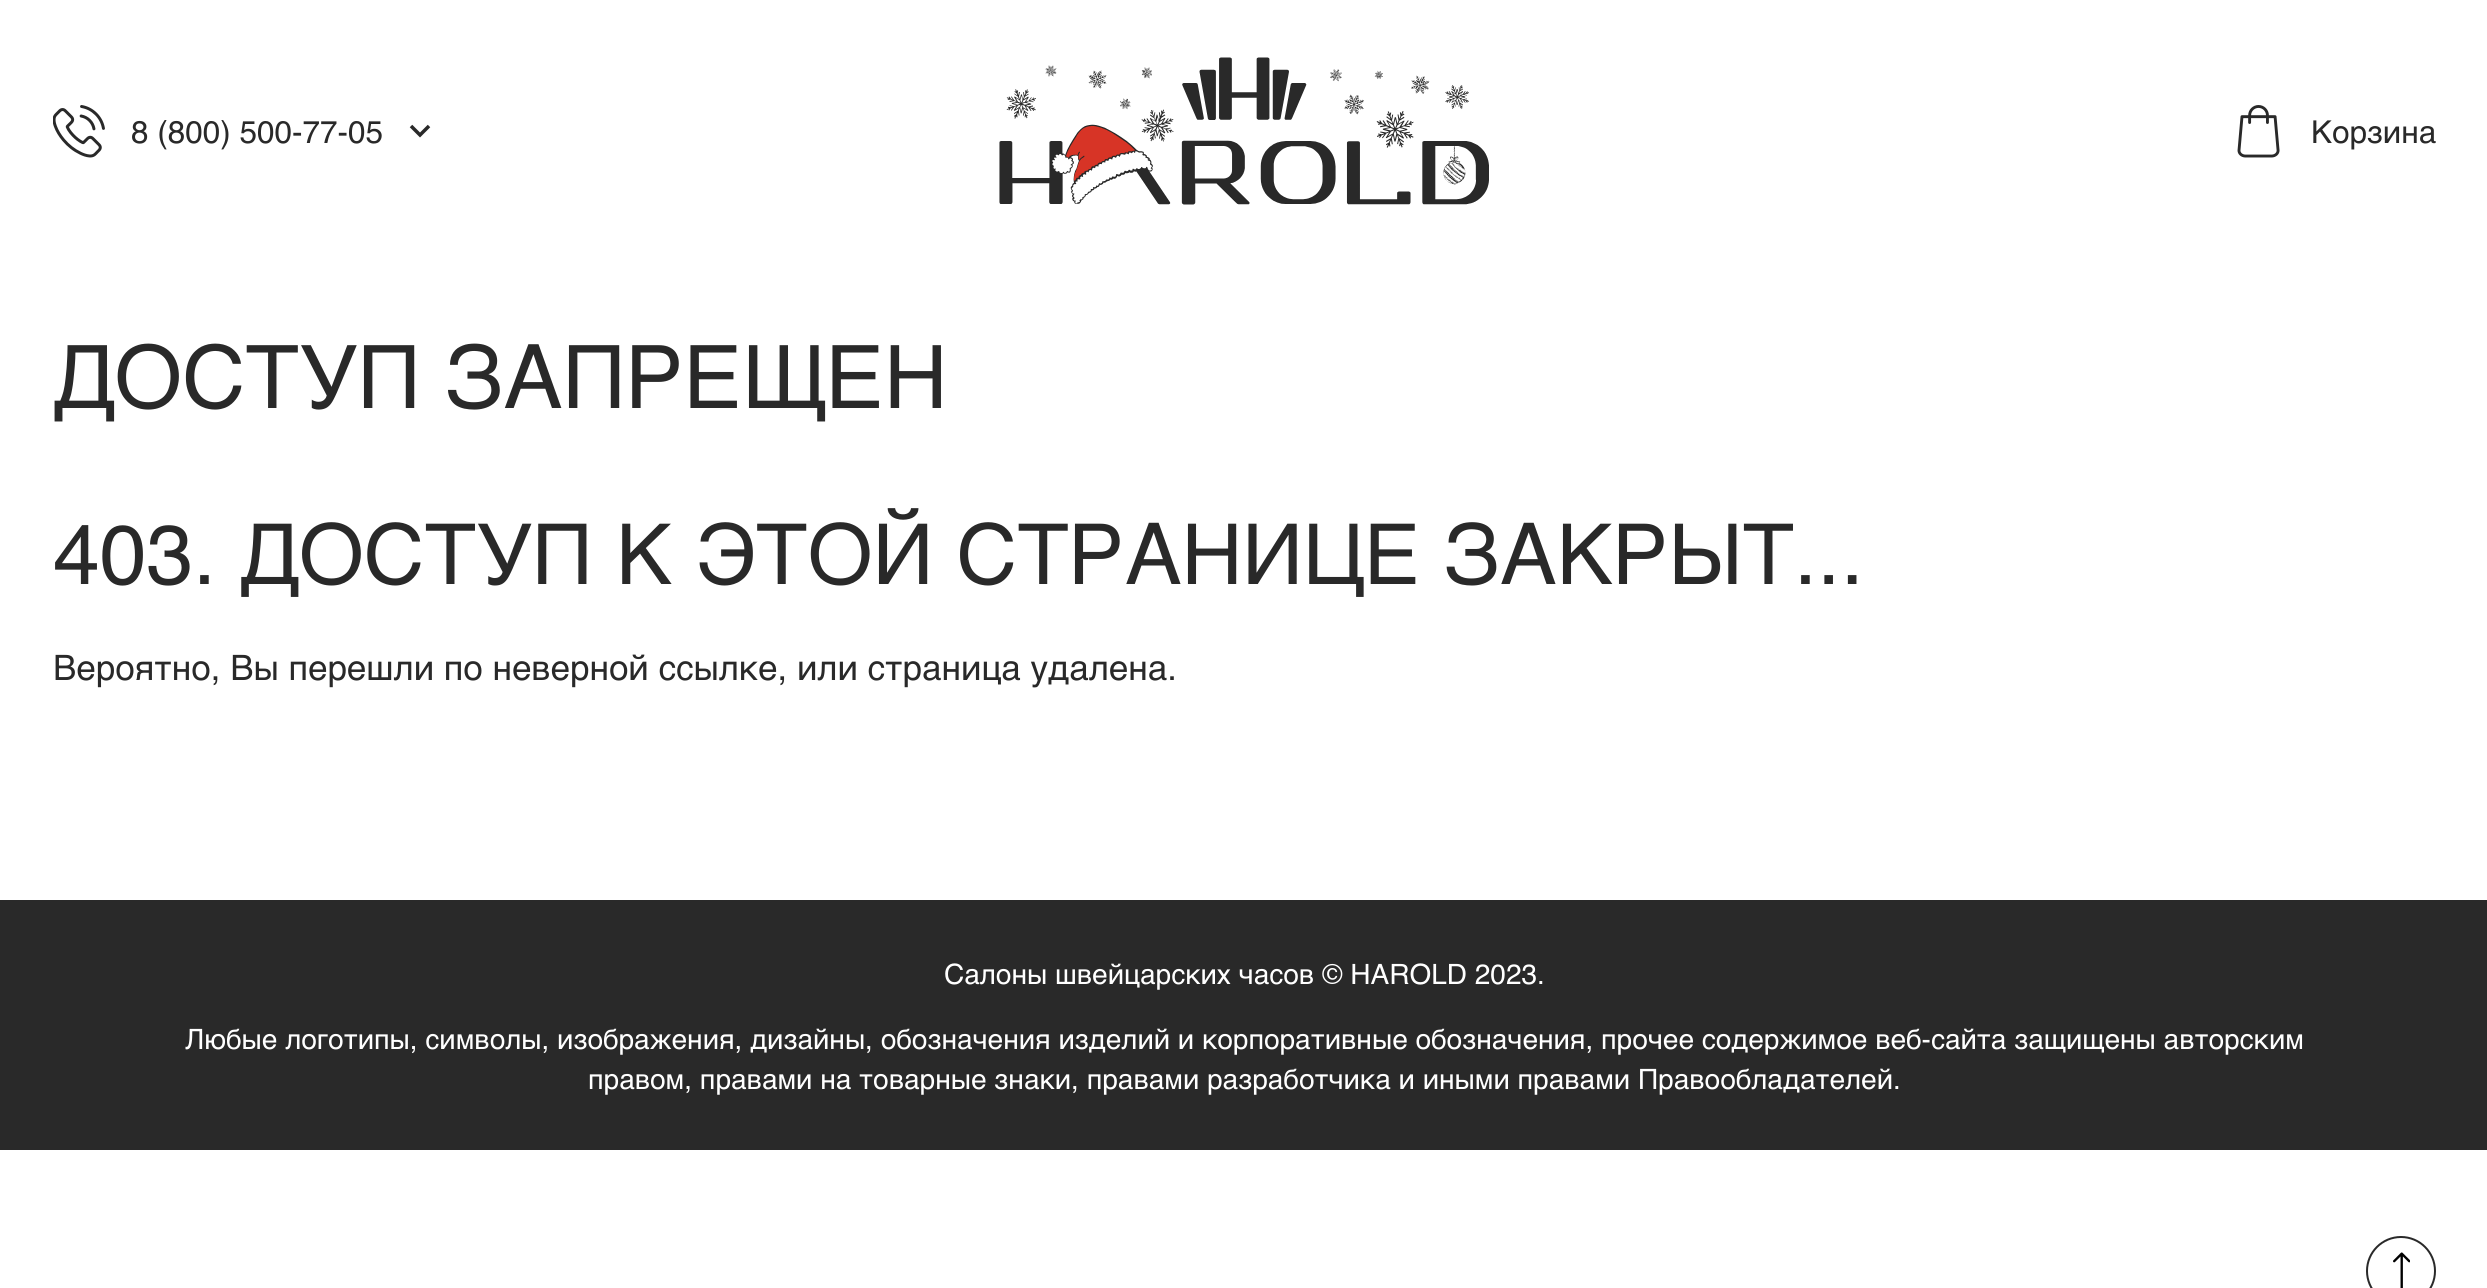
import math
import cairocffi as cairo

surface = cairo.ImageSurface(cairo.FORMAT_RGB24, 2487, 1288)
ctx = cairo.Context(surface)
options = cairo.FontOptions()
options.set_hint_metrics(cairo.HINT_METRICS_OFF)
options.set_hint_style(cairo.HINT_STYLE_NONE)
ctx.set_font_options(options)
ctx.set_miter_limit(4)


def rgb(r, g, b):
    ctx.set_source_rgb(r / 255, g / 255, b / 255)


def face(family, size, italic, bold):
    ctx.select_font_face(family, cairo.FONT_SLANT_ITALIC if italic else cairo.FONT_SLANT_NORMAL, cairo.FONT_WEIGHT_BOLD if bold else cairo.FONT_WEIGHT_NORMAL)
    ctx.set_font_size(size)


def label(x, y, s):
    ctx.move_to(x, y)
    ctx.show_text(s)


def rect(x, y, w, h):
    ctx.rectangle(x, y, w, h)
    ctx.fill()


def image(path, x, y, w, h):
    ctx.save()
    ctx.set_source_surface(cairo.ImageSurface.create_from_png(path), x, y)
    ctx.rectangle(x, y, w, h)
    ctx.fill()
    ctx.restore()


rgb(255, 255, 255)
ctx.paint()
image('image0.png', 53, 105, 52, 53)
face('Helvetica', 31.5, 0, 0)
rgb(41, 41, 41)
label(131, 143, '8 (800) 500-77-05')
ctx.new_path()
ctx.move_to(411, 126)
ctx.line_to(420, 135)
ctx.line_to(429, 126)
ctx.set_line_width(3.5)
ctx.stroke()
image('image1.png', 999, 57, 490, 148)
image('image2.png', 2237, 105, 43, 53)
label(2311, 143, 'Корзина')
face('Helvetica', 87.5, 0, 0)
label(53, 408, 'ДОСТУП ЗАПРЕЩЕН')
face('Helvetica', 84, 0, 0)
label(53, 584, '403. ДОСТУП К ЭТОЙ СТРАНИЦЕ ЗАКРЫТ...')
face('Helvetica', 35, 0, 0)
label(53, 680, 'Вероятно, Вы перешли по неверной ссылке, или страница удалена.')
rect(0, 900, 2487, 250)
face('Helvetica', 28, 0, 0)
rgb(255, 255, 255)
label(944, 984, 'Cалоны швейцарских часов © HAROLD 2023.')
label(185, 1049, 'Любые логотипы, символы, изображения, дизайны, обозначения изделий и корпоративные обозначения, прочее содержимое веб-сайта защищены авторским')
label(588, 1089, 'правом, правами на товарные знаки, правами разработчика и иными правами Правообладателей.')
ctx.new_path()
ctx.arc(2401, 1271, 34, 0, 2 * math.pi)
rgb(41, 41, 41)
ctx.set_line_width(2)
ctx.stroke()
image('image3.png', 2393, 1252, 17, 36)
surface.write_to_png('render.png')
